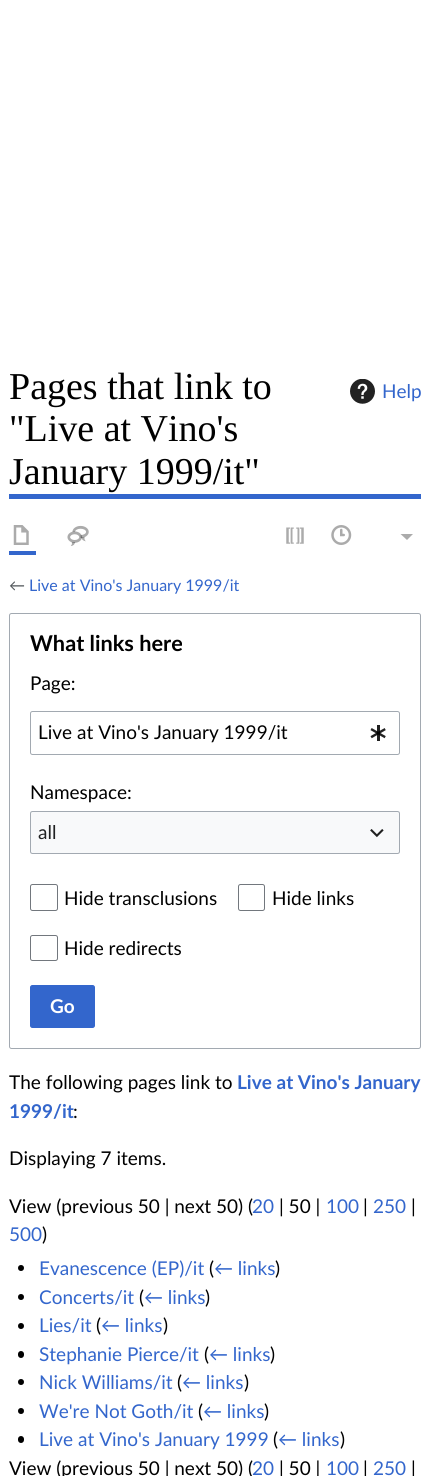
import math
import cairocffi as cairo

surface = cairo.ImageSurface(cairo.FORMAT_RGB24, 430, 1476)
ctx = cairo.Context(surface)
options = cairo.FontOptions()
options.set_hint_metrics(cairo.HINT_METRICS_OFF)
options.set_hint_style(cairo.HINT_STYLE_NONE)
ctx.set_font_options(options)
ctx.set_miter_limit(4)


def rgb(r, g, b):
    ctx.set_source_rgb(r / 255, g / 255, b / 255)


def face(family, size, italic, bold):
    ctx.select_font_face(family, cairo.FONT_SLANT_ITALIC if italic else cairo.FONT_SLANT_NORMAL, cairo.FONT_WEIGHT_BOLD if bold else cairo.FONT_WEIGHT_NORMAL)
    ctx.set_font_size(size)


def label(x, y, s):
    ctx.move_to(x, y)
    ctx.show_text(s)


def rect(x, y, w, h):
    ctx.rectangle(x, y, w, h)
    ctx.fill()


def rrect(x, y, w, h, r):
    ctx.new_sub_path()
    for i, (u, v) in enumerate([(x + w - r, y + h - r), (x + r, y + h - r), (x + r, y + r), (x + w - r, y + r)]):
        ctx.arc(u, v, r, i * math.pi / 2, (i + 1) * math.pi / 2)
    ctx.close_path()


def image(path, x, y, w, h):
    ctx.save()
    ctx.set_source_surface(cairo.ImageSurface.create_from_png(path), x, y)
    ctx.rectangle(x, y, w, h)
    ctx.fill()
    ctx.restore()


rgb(255, 255, 255)
ctx.paint()
rgb(51, 102, 204)
rect(9, 494, 412, 5)
face('Liberation Serif', 38, 0, 0)
rgb(0, 0, 0)
label(9, 399, 'Pages that link to')
label(9, 441, '"Live at Vino\'s')
label(9, 484, 'January 1999/it"')
image('image0.png', 350, 379, 25, 25)
face('Lato', 19, 0, 0)
rgb(51, 102, 204)
label(382, 398, 'Help')
rect(9, 551, 27, 4)
image('image1.png', 13, 525, 16, 20)
image('image2.png', 67, 525, 22, 21)
image('image3.png', 286, 527, 18, 17)
image('image4.png', 331, 525, 21, 20)
rgb(171, 171, 171)
ctx.new_path()
ctx.move_to(413, 534)
ctx.line_to(407, 540)
ctx.line_to(400.5, 534)
ctx.close_path()
ctx.fill()
face('Lato', 16, 0, 0)
rgb(84, 89, 93)
label(9, 591, '←')
rgb(51, 102, 204)
label(29, 591, 'Live at Vino\'s January 1999/it')
rrect(9.5, 613.5, 411, 435, 2)
rgb(162, 169, 177)
ctx.set_line_width(1)
ctx.stroke()
face('Lato', 21.75, 0, 1)
rgb(0, 0, 0)
label(30, 651, 'What links here')
face('Lato', 19, 0, 0)
label(30, 690, 'Page:')
rrect(30.5, 711.5, 369, 43, 2)
rgb(162, 169, 177)
ctx.stroke()
rgb(0, 0, 0)
label(38, 739, 'Live at Vino\'s January 1999/it')
image('image5.png', 370, 725, 16, 16)
label(30, 799, 'Namespace:')
rgb(248, 249, 250)
rect(30, 811, 370, 43)
rrect(30.5, 811.5, 369, 42, 2)
rgb(162, 169, 177)
ctx.stroke()
rgb(32, 33, 34)
label(38, 839, 'all')
image('image6.png', 370, 829, 14, 9)
rrect(30.5, 884.5, 27, 26, 2)
rgb(114, 119, 125)
ctx.stroke()
rgb(0, 0, 0)
label(64, 905, 'Hide transclusions')
rrect(238.5, 884.5, 26, 26, 2)
rgb(114, 119, 125)
ctx.stroke()
rgb(0, 0, 0)
label(272, 905, 'Hide links')
rrect(30.5, 935.5, 27, 25, 2)
rgb(114, 119, 125)
ctx.stroke()
rgb(0, 0, 0)
label(64, 955, 'Hide redirects')
rgb(51, 102, 204)
rrect(30.5, 985.5, 64, 42, 2)
ctx.fill_preserve()
ctx.stroke()
face('Lato', 19, 0, 1)
rgb(255, 255, 255)
label(50, 1013, 'Go')
face('Lato', 19, 0, 0)
rgb(0, 0, 0)
label(9, 1089, 'The following pages link to')
face('Lato', 19, 0, 1)
rgb(51, 102, 204)
label(237, 1089, 'Live at Vino\'s January')
label(9, 1118, '1999/it')
face('Lato', 19, 0, 0)
rgb(0, 0, 0)
label(73, 1118, ':')
label(9, 1165, 'Displaying 7 items.')
label(9, 1213, 'View (previous 50 | next 50) (')
rgb(51, 102, 204)
label(252, 1213, '20')
rgb(0, 0, 0)
label(279, 1213, '| 50 |')
rgb(51, 102, 204)
label(326, 1213, '100')
rgb(0, 0, 0)
label(363, 1213, '|')
rgb(51, 102, 204)
label(373, 1213, '250')
rgb(0, 0, 0)
label(411, 1213, '|')
rgb(51, 102, 204)
label(9, 1241, '500')
rgb(0, 0, 0)
label(42, 1241, ')')
ctx.new_path()
ctx.arc(21, 1268, 3, 0, 2 * math.pi)
ctx.fill()
rgb(51, 102, 204)
label(39, 1275, 'Evanescence (EP)/it')
rgb(0, 0, 0)
label(209, 1275, '(')
rgb(51, 102, 204)
label(214, 1275, '← links')
rgb(0, 0, 0)
label(275, 1275, ')')
ctx.new_path()
ctx.arc(21, 1297, 3, 0, 2 * math.pi)
ctx.fill()
rgb(51, 102, 204)
label(39, 1304, 'Concerts/it')
rgb(0, 0, 0)
label(139, 1304, '(')
rgb(51, 102, 204)
label(144, 1304, '← links')
rgb(0, 0, 0)
label(205, 1304, ')')
ctx.new_path()
ctx.arc(21, 1326, 3, 0, 2 * math.pi)
ctx.fill()
rgb(51, 102, 204)
label(39, 1332, 'Lies/it')
rgb(0, 0, 0)
label(96, 1332, '(')
rgb(51, 102, 204)
label(101, 1332, '← links')
rgb(0, 0, 0)
label(163, 1332, ')')
rrect(18, 1351, 6, 7, 3)
ctx.fill()
rgb(51, 102, 204)
label(39, 1361, 'Stephanie Pierce/it')
rgb(0, 0, 0)
label(204, 1361, '(')
rgb(51, 102, 204)
label(209, 1361, '← links')
rgb(0, 0, 0)
label(270, 1361, ')')
ctx.new_path()
ctx.arc(21, 1382, 3, 0, 2 * math.pi)
ctx.fill()
rgb(51, 102, 204)
label(39, 1389, 'Nick Williams/it')
rgb(0, 0, 0)
label(177, 1389, '(')
rgb(51, 102, 204)
label(182, 1389, '← links')
rgb(0, 0, 0)
label(244, 1389, ')')
ctx.new_path()
ctx.arc(21, 1411, 3, 0, 2 * math.pi)
ctx.fill()
rgb(51, 102, 204)
label(39, 1418, 'We\'re Not Goth/it')
rgb(0, 0, 0)
label(198, 1418, '(')
rgb(51, 102, 204)
label(203, 1418, '← links')
rgb(0, 0, 0)
label(264, 1418, ')')
rrect(18, 1436, 6, 7, 3)
ctx.fill()
rgb(51, 102, 204)
label(39, 1446, 'Live at Vino\'s January 1999')
rgb(0, 0, 0)
label(273, 1446, '(')
rgb(51, 102, 204)
label(278, 1446, '← links')
rgb(0, 0, 0)
label(340, 1446, ')')
label(9, 1475, 'View (previous 50 | next 50) (')
rgb(51, 102, 204)
label(252, 1475, '20')
rgb(0, 0, 0)
label(279, 1475, '| 50 |')
rgb(51, 102, 204)
label(326, 1475, '100')
rgb(0, 0, 0)
label(363, 1475, '|')
rgb(51, 102, 204)
label(373, 1475, '250')
rgb(0, 0, 0)
label(411, 1475, '|')
surface.write_to_png('render.png')
